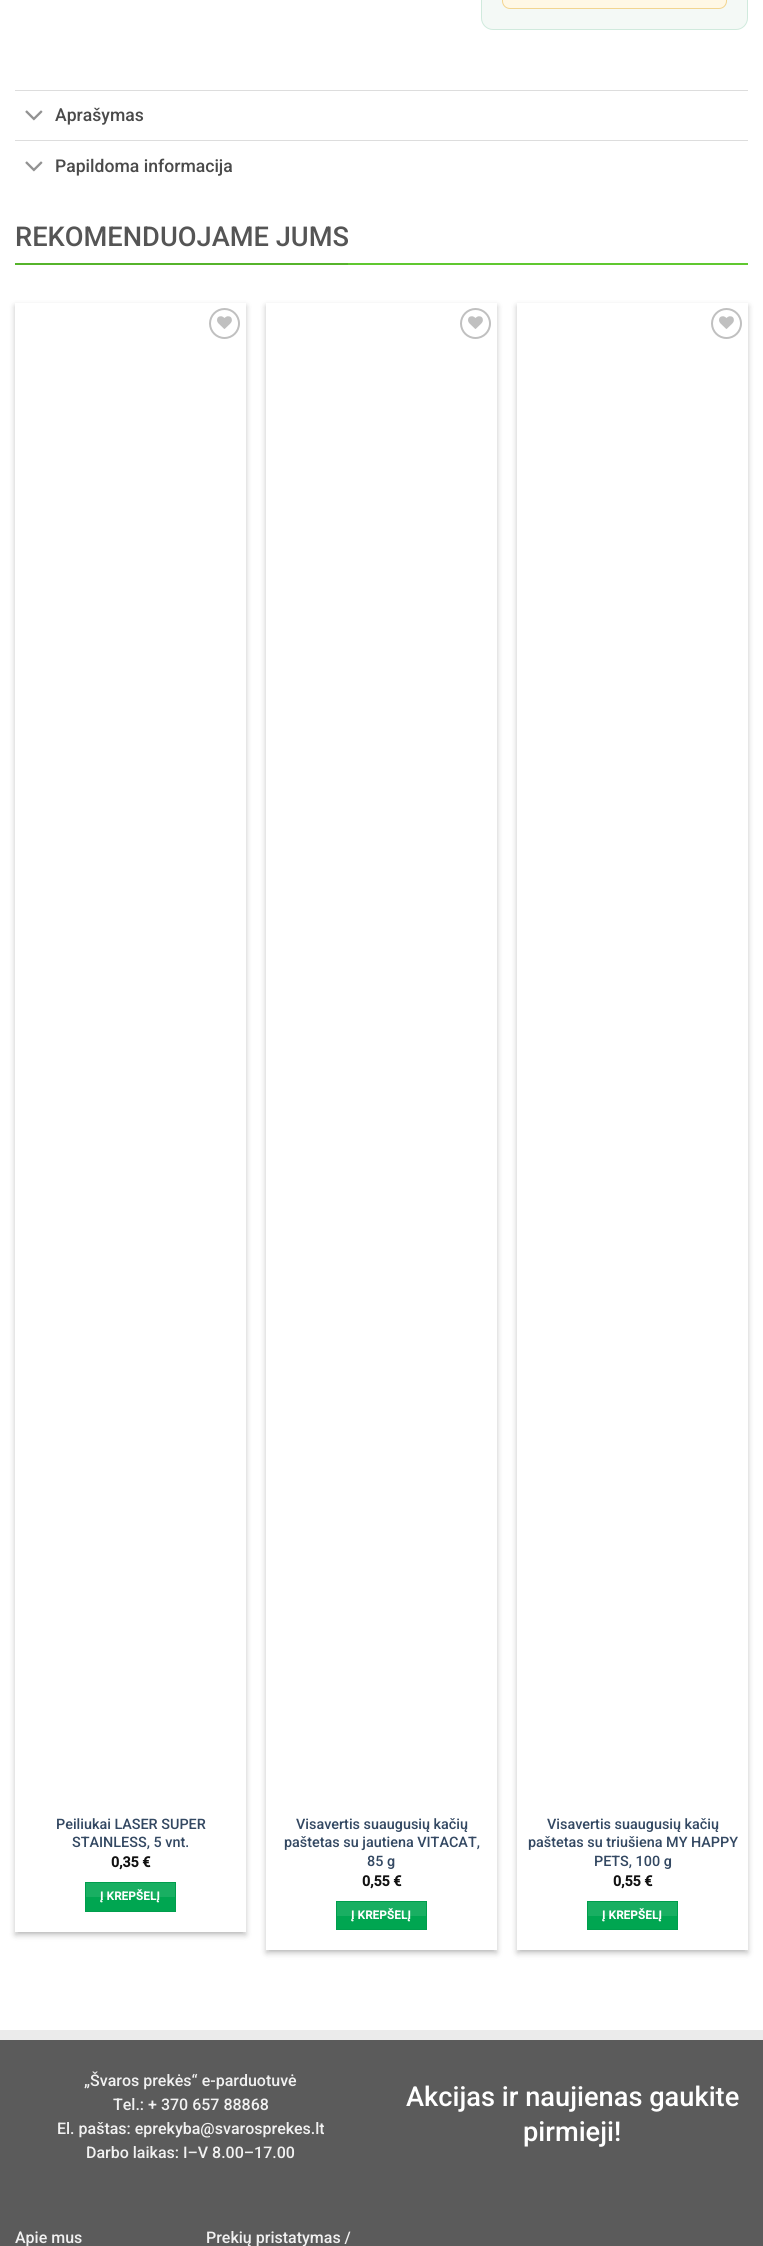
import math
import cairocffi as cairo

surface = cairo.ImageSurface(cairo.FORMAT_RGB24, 763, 2246)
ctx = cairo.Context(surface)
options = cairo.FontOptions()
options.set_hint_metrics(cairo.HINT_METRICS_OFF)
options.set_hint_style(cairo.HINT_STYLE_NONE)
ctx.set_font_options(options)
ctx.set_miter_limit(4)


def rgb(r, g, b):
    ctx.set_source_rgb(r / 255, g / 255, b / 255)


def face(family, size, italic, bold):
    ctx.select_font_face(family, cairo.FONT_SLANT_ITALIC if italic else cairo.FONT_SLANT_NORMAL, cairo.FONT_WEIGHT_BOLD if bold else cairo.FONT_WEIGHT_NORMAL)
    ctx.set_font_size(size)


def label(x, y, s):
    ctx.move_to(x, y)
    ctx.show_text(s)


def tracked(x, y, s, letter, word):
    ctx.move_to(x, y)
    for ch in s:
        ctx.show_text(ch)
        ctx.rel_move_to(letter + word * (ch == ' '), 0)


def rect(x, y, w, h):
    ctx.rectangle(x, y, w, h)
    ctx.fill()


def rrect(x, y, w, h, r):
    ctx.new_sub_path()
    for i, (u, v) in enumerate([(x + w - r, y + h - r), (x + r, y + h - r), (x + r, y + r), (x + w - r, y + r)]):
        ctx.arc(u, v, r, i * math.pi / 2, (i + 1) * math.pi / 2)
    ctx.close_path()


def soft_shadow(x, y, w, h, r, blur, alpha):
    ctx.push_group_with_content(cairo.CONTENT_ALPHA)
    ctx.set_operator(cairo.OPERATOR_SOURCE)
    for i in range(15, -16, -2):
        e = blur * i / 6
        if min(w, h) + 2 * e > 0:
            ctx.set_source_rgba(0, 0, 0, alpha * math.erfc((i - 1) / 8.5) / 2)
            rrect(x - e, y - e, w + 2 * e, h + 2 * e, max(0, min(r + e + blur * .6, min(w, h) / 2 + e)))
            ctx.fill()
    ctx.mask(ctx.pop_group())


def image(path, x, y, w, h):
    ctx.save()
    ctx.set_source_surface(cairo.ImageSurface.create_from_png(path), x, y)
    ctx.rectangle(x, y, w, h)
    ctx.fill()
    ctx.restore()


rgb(255, 255, 255)
ctx.paint()
rgb(244, 249, 246)
rrect(481.5, -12.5, 266, 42, 11.5)
ctx.fill_preserve()
rgb(208, 234, 221)
ctx.set_line_width(1)
ctx.stroke()
rgb(255, 248, 229)
rrect(502.5, -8.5, 224, 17, 7.5)
ctx.fill_preserve()
rgb(242, 213, 144)
ctx.stroke()
rgb(221, 221, 221)
rect(15, 90, 733, 1)
image('image0.png', 25, 110, 18, 11)
face('Roboto Medium', 17.6, 0, 0)
rgb(74, 74, 74)
label(55, 121, 'Aprašymas')
rgb(221, 221, 221)
rect(15, 140, 733, 1)
image('image0.png', 25, 161, 18, 11)
rgb(74, 74, 74)
label(55, 172, 'Papildoma informacija')
rgb(96, 200, 48)
rect(348, 263, 400, 2)
rgb(86, 180, 43)
rect(15, 263, 333, 2)
face('Roboto Medium', 27.25, 0, 0)
rgb(85, 85, 85)
label(15, 246, 'REKOMENDUOJAME JUMS')
ctx.save()
ctx.set_fill_rule(cairo.FILL_RULE_EVEN_ODD)
ctx.new_path()
ctx.move_to(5, 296)
ctx.line_to(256, 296)
ctx.line_to(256, 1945)
ctx.line_to(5, 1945)
ctx.close_path()
ctx.move_to(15, 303)
ctx.line_to(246, 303)
ctx.line_to(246, 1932)
ctx.line_to(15, 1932)
ctx.close_path()
ctx.clip()
rgb(0, 0, 0)
soft_shadow(15, 306, 231, 1629, 0, 3, 0.23)
ctx.restore()
ctx.save()
ctx.rectangle(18, 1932, 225, 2)
ctx.clip()
rgb(0, 0, 0)
soft_shadow(19, 310, 223, 1621, 0, 3, 0.16)
ctx.restore()
ctx.arc(224.5, 323.5, 14.5, 0, 2 * math.pi)
rgb(192, 192, 192)
ctx.set_line_width(2)
ctx.stroke()
image('image1.png', 217, 316, 15, 13)
face('Roboto Medium', 14.4, 0, 0)
rgb(51, 72, 98)
label(56, 1829, 'Peiliukai LASER SUPER')
label(72, 1847, 'STAINLESS, 5 vnt.')
face('Roboto', 14.4, 0, 1)
rgb(17, 17, 17)
label(111, 1867, '0,35 €')
rgb(0, 166, 81)
ctx.rectangle(85.5, 1882.5, 90, 29)
ctx.fill_preserve()
rgb(0, 158, 77)
ctx.set_line_width(1)
ctx.stroke()
ctx.set_source_rgba(1, 1, 1, 0.1)
rect(86, 1883, 89, 14)
face('Roboto', 11.5, 0, 1)
rgb(255, 255, 255)
tracked(100, 1900, 'Į KREPŠELĮ', 0.25, 0)
ctx.save()
ctx.set_fill_rule(cairo.FILL_RULE_EVEN_ODD)
ctx.new_path()
ctx.move_to(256, 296)
ctx.line_to(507, 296)
ctx.line_to(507, 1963)
ctx.line_to(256, 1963)
ctx.close_path()
ctx.move_to(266, 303)
ctx.line_to(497, 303)
ctx.line_to(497, 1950)
ctx.line_to(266, 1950)
ctx.close_path()
ctx.clip()
rgb(0, 0, 0)
soft_shadow(266, 306, 231, 1647, 0, 3, 0.23)
ctx.restore()
ctx.save()
ctx.rectangle(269, 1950, 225, 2)
ctx.clip()
rgb(0, 0, 0)
soft_shadow(270, 310, 223, 1639, 0, 3, 0.16)
ctx.restore()
ctx.arc(475.5, 323.5, 14.5, 0, 2 * math.pi)
rgb(192, 192, 192)
ctx.set_line_width(2)
ctx.stroke()
image('image1.png', 468, 316, 15, 13)
face('Roboto Medium', 14.4, 0, 0)
rgb(51, 72, 98)
label(296, 1829, 'Visavertis suaugusių kačių')
label(284, 1847, 'paštetas su jautiena VITACAT,')
label(367, 1866, '85 g')
face('Roboto', 14.4, 0, 1)
rgb(17, 17, 17)
label(362, 1886, '0,55 €')
rgb(0, 166, 81)
ctx.rectangle(336.5, 1901.5, 90, 28)
ctx.fill_preserve()
rgb(0, 158, 77)
ctx.set_line_width(1)
ctx.stroke()
ctx.set_source_rgba(1, 1, 1, 0.1)
rect(337, 1902, 89, 14)
face('Roboto', 11.5, 0, 1)
rgb(255, 255, 255)
tracked(351, 1919, 'Į KREPŠELĮ', 0.25, 0)
ctx.save()
ctx.set_fill_rule(cairo.FILL_RULE_EVEN_ODD)
ctx.new_path()
ctx.move_to(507, 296)
ctx.line_to(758, 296)
ctx.line_to(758, 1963)
ctx.line_to(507, 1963)
ctx.close_path()
ctx.move_to(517, 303)
ctx.line_to(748, 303)
ctx.line_to(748, 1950)
ctx.line_to(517, 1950)
ctx.close_path()
ctx.clip()
rgb(0, 0, 0)
soft_shadow(517, 306, 231, 1647, 0, 3, 0.23)
ctx.restore()
ctx.save()
ctx.rectangle(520, 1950, 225, 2)
ctx.clip()
rgb(0, 0, 0)
soft_shadow(521, 310, 223, 1639, 0, 3, 0.16)
ctx.restore()
ctx.arc(726.5, 323.5, 14.5, 0, 2 * math.pi)
rgb(192, 192, 192)
ctx.set_line_width(2)
ctx.stroke()
image('image1.png', 719, 316, 15, 13)
face('Roboto Medium', 14.4, 0, 0)
rgb(51, 72, 98)
label(547, 1829, 'Visavertis suaugusių kačių')
label(528, 1847, 'paštetas su triušiena MY HAPPY')
label(594, 1866, 'PETS, 100 g')
face('Roboto', 14.4, 0, 1)
rgb(17, 17, 17)
label(613, 1886, '0,55 €')
rgb(0, 166, 81)
ctx.rectangle(587.5, 1901.5, 90, 28)
ctx.fill_preserve()
rgb(0, 158, 77)
ctx.set_line_width(1)
ctx.stroke()
ctx.set_source_rgba(1, 1, 1, 0.1)
rect(588, 1902, 89, 14)
face('Roboto', 11.5, 0, 1)
rgb(255, 255, 255)
tracked(602, 1919, 'Į KREPŠELĮ', 0.25, 0)
rgb(235, 235, 235)
rect(0, 2030, 763, 10)
rgb(91, 91, 91)
rect(0, 2040, 763, 206)
face('Roboto Medium', 16, 0, 0)
rgb(241, 241, 241)
label(84, 2086, '„Švaros prekės“ e-parduotuvė')
label(113, 2110, 'Tel.: + 370 657 88868')
label(57, 2134, 'El. paštas: eprekyba@svarosprekes.lt')
label(86, 2158, 'Darbo laikas: I–V 8.00–17.00')
label(15, 2243, 'Apie mus')
label(206, 2243, 'Prekių pristatymas /')
face('Roboto Medium', 27.25, 0, 0)
rgb(255, 255, 255)
label(406, 2106, 'Akcijas ir naujienas gaukite')
label(523, 2141, 'pirmieji!')
surface.write_to_png('render.png')
